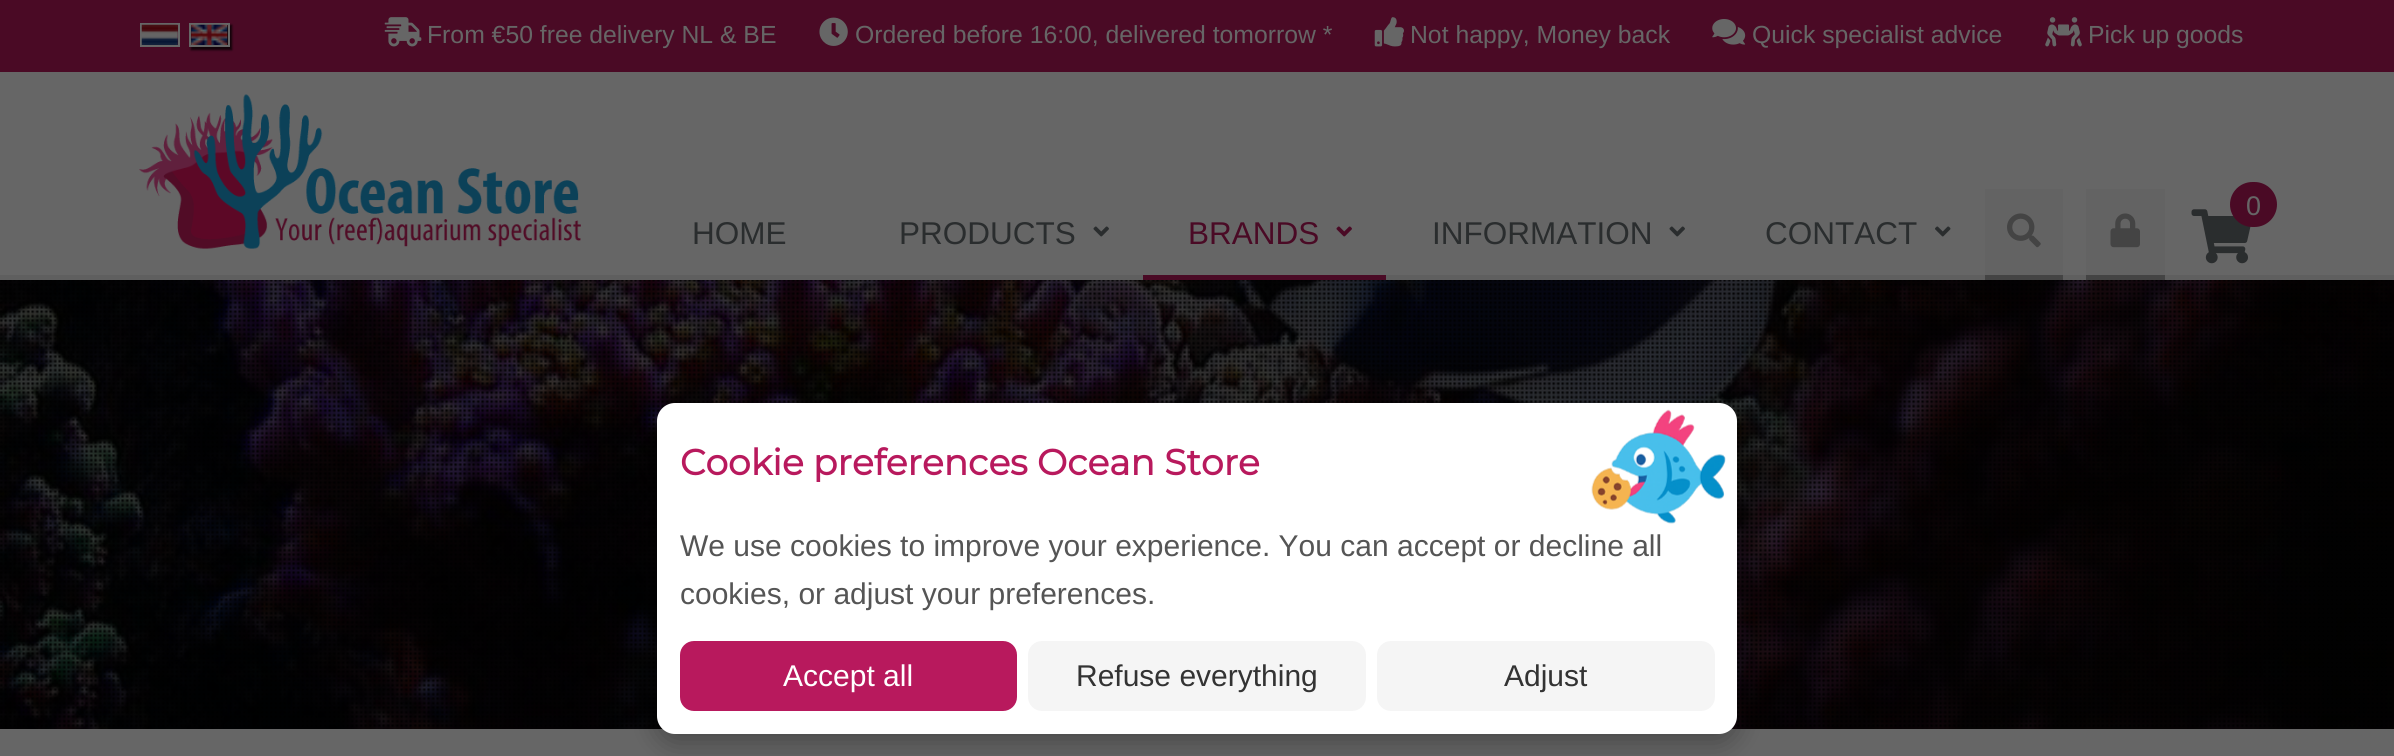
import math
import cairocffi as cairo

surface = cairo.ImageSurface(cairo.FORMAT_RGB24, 2394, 756)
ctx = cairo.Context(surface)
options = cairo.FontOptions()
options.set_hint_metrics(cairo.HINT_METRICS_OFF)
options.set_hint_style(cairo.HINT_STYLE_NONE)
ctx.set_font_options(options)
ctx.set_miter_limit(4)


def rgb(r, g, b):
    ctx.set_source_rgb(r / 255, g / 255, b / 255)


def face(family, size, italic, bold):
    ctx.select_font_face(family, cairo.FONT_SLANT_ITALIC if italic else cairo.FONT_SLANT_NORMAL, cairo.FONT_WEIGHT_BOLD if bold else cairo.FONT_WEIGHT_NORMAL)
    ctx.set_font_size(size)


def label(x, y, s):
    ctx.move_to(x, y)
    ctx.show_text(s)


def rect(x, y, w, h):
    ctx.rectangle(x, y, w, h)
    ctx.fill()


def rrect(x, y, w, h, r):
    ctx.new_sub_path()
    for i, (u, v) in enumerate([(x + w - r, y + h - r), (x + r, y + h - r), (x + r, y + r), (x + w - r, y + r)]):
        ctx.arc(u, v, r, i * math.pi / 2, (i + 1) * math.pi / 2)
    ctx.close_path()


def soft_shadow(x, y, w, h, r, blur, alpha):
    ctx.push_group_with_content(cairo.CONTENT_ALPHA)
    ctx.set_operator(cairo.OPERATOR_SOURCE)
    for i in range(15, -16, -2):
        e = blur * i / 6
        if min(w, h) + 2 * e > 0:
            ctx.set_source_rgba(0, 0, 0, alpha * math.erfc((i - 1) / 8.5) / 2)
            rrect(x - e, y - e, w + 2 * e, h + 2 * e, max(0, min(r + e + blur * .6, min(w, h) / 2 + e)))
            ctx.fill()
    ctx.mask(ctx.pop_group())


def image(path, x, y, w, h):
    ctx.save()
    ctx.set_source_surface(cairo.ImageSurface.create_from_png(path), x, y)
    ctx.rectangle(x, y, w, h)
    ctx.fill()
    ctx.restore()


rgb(102, 102, 102)
ctx.paint()
rgb(95, 95, 95)
rect(0, 275, 2394, 5)
rgb(74, 10, 37)
rect(0, 0, 2394, 72)
ctx.rectangle(141, 24, 38, 22)
rgb(102, 102, 102)
ctx.stroke()
rgb(0, 0, 0)
soft_shadow(191, 25, 41, 25, 0, 1, 0.75)
image('image0.png', 141, 24, 37, 21)
ctx.rectangle(190, 24, 39, 22)
rgb(102, 102, 102)
ctx.stroke()
image('image1.png', 191, 24, 37, 21)
image('image2.png', 384, 17, 38, 30)
face('Liberation Sans', 24.75, 0, 0)
label(427, 43, 'From €50 free delivery NL & BE')
image('image3.png', 819, 17, 29, 29)
label(855, 43, 'Ordered before 16:00, delivered tomorrow *')
image('image4.png', 1374, 17, 30, 30)
label(1410, 43, 'Not happy, Money back')
image('image5.png', 1712, 19, 34, 26)
label(1752, 43, 'Quick specialist advice')
image('image6.png', 2045, 17, 37, 30)
label(2088, 43, 'Pick up goods')
image('image7.png', 139, 94, 442, 155)
rgb(99, 99, 99)
rect(1985, 189, 78, 86)
rgb(68, 68, 68)
rect(1985, 275, 78, 5)
image('image8.png', 2007, 213, 34, 35)
rgb(99, 99, 99)
rect(2086, 189, 79, 86)
rgb(68, 68, 68)
rect(2086, 275, 79, 5)
image('image9.png', 2110, 213, 30, 35)
image('image10.png', 2191, 209, 60, 55)
rgb(74, 10, 37)
rrect(2230, 182, 47, 45, 22.5)
ctx.fill()
face('Liberation Sans', 27, 0, 0)
rgb(102, 102, 102)
label(2246, 215, '0')
face('Liberation Sans', 31.5, 0, 0)
rgb(42, 45, 46)
label(692, 244, 'HOME')
label(899, 244, 'PRODUCTS')
image('image11.png', 1093, 226, 16, 11)
rgb(74, 10, 37)
rect(1143, 275, 243, 5)
label(1188, 244, 'BRANDS')
image('image12.png', 1336, 226, 16, 11)
rgb(42, 45, 46)
label(1432, 244, 'INFORMATION')
image('image11.png', 1669, 226, 16, 11)
label(1765, 244, 'CONTACT')
image('image13.png', 1935, 226, 16, 11)
image('image14.png', 0, 280, 2394, 449)
image('image15.png', 0, 280, 2392, 449)
rgb(0, 0, 0)
soft_shadow(657, 412, 1080, 331, 18, 13.5, 0.3)
rgb(255, 255, 255)
rrect(657, 403, 1080, 331, 18)
ctx.fill()
face('Montserrat', 36, 0, 1)
rgb(184, 25, 93)
label(680, 475, 'Cookie preferences Ocean Store')
image('image16.png', 1591, 409, 135, 115)
face('Liberation Sans', 30, 0, 0)
rgb(85, 85, 85)
label(680, 556, 'We use cookies to improve your experience. You can accept or decline all')
label(680, 604, 'cookies, or adjust your preferences.')
rgb(184, 25, 93)
rrect(680, 641, 337, 70, 14)
ctx.fill()
rgb(255, 255, 255)
label(783, 686, 'Accept all')
rgb(245, 245, 245)
rrect(1028, 641, 338, 70, 14)
ctx.fill()
rgb(51, 51, 51)
label(1076, 686, 'Refuse everything')
rgb(245, 245, 245)
rrect(1377, 641, 338, 70, 14)
ctx.fill()
rgb(51, 51, 51)
label(1504, 686, 'Adjust')
surface.write_to_png('render.png')
